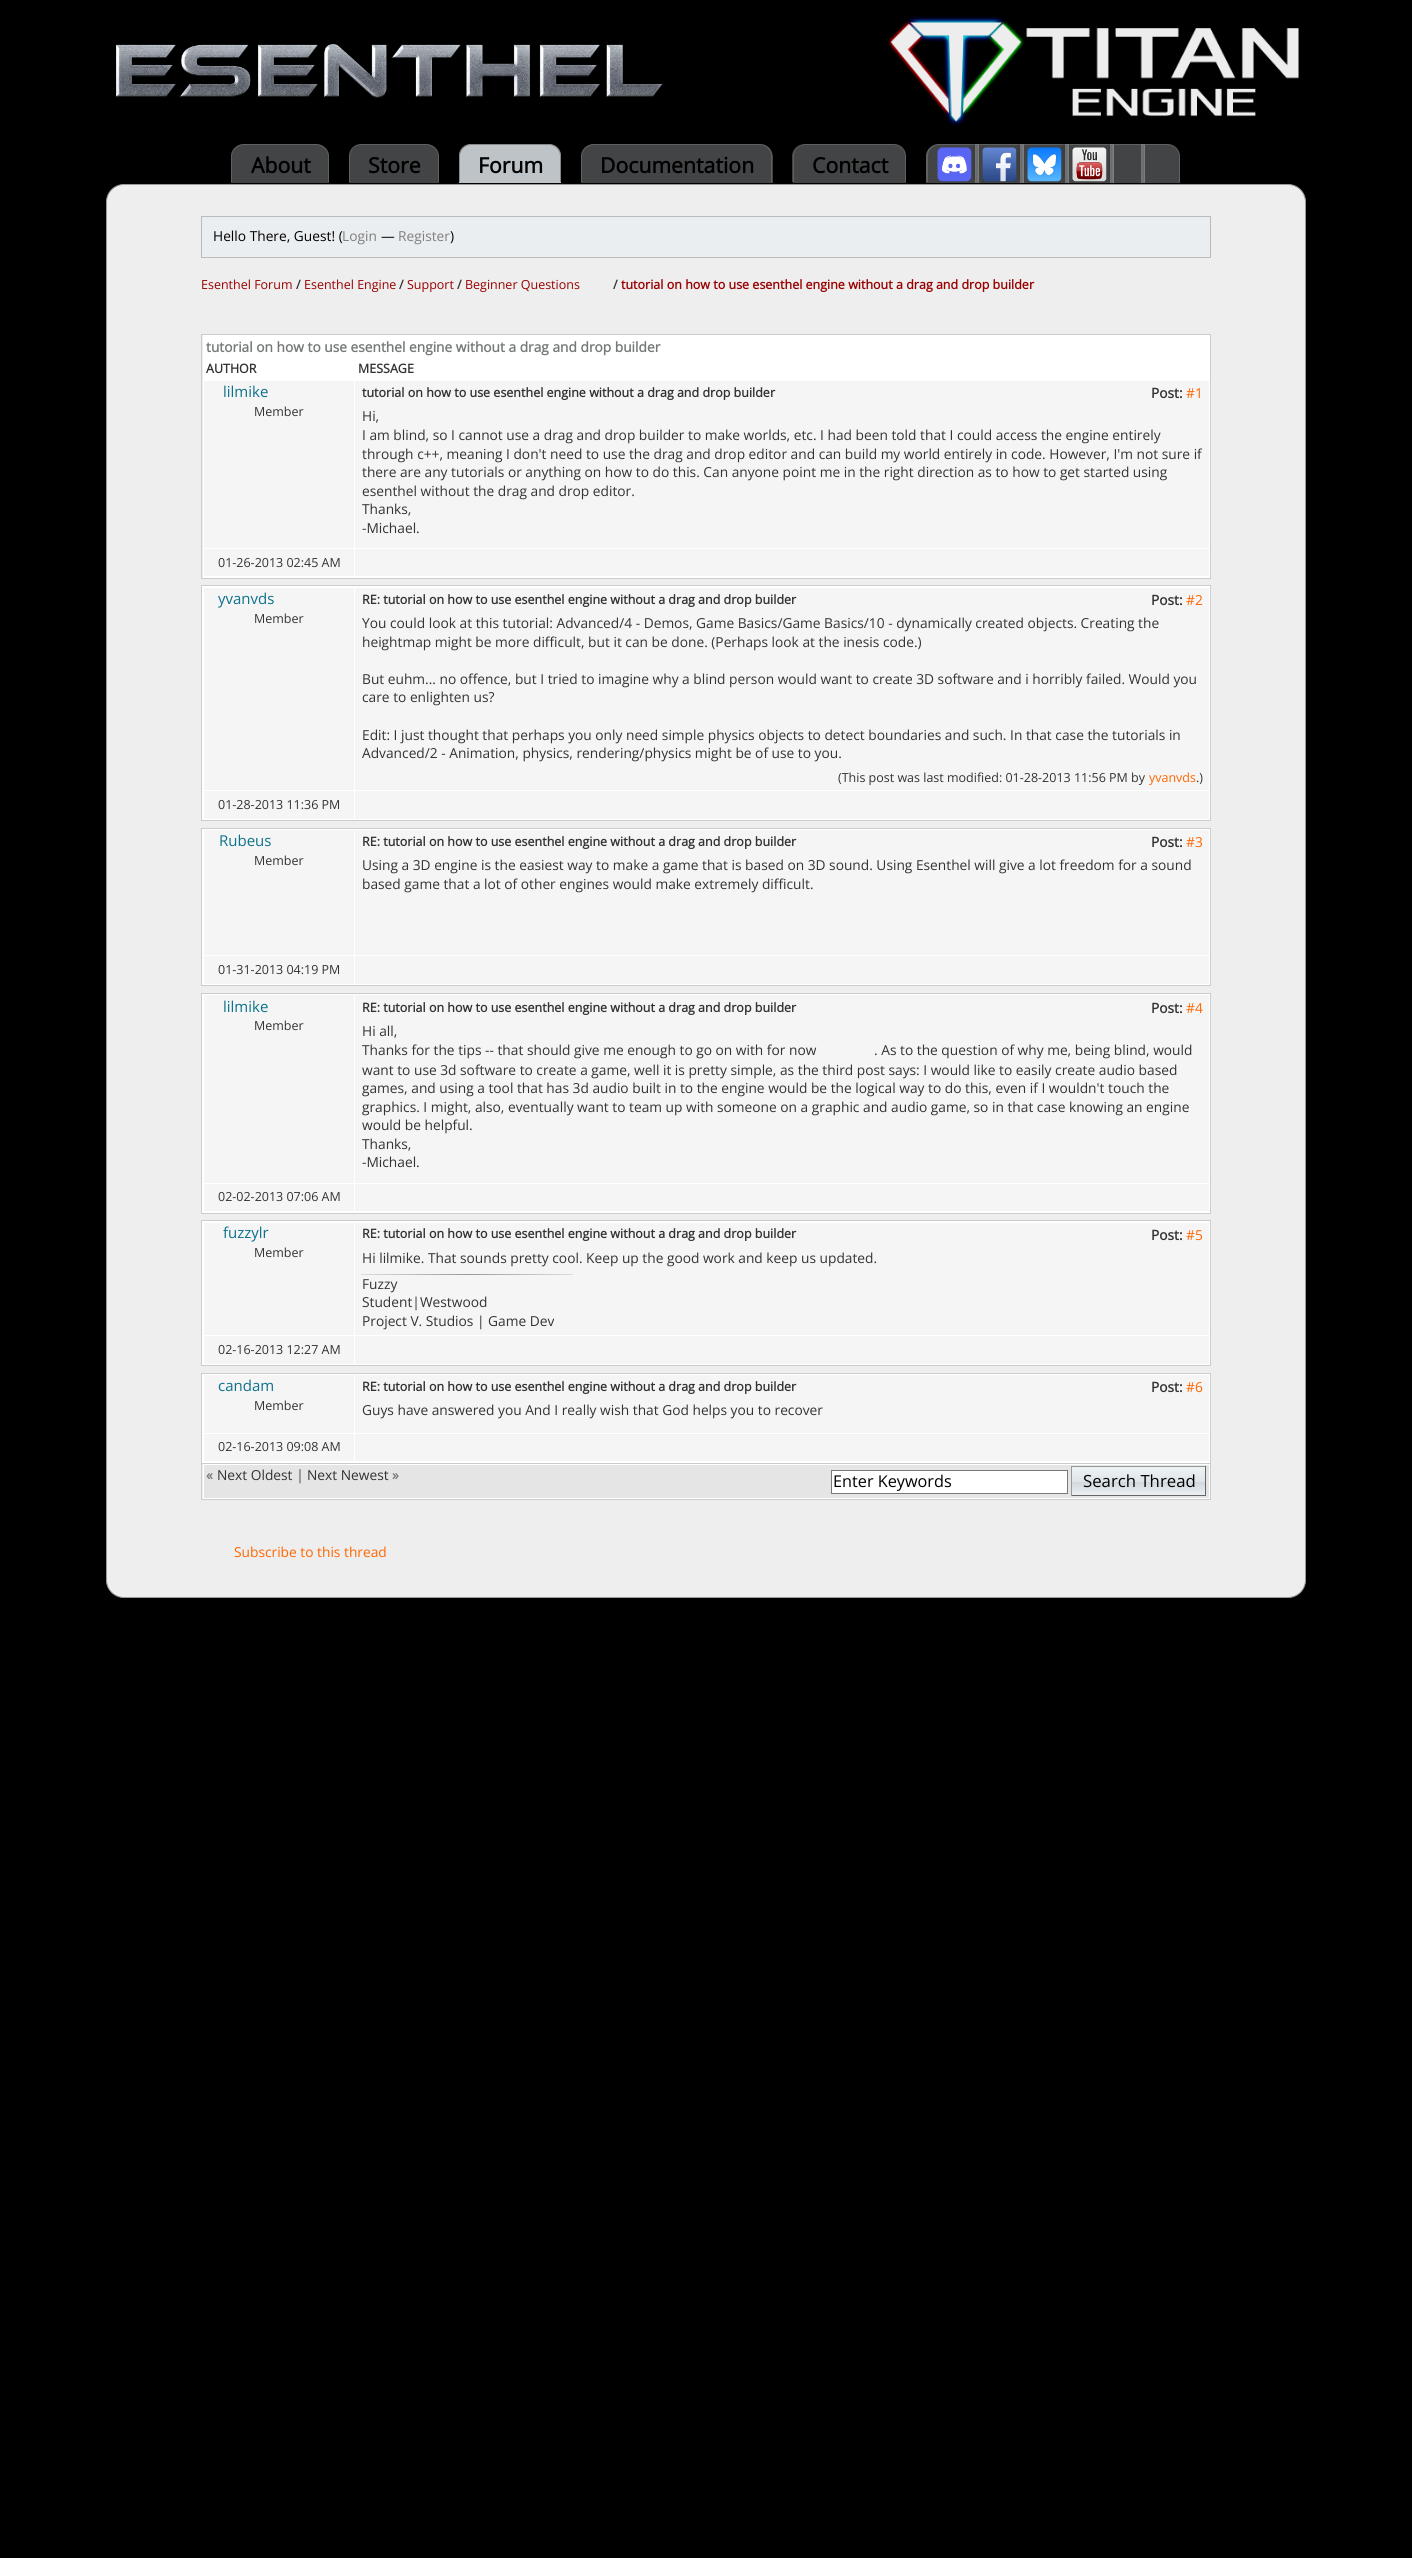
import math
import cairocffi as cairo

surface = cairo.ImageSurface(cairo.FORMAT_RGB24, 1412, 2558)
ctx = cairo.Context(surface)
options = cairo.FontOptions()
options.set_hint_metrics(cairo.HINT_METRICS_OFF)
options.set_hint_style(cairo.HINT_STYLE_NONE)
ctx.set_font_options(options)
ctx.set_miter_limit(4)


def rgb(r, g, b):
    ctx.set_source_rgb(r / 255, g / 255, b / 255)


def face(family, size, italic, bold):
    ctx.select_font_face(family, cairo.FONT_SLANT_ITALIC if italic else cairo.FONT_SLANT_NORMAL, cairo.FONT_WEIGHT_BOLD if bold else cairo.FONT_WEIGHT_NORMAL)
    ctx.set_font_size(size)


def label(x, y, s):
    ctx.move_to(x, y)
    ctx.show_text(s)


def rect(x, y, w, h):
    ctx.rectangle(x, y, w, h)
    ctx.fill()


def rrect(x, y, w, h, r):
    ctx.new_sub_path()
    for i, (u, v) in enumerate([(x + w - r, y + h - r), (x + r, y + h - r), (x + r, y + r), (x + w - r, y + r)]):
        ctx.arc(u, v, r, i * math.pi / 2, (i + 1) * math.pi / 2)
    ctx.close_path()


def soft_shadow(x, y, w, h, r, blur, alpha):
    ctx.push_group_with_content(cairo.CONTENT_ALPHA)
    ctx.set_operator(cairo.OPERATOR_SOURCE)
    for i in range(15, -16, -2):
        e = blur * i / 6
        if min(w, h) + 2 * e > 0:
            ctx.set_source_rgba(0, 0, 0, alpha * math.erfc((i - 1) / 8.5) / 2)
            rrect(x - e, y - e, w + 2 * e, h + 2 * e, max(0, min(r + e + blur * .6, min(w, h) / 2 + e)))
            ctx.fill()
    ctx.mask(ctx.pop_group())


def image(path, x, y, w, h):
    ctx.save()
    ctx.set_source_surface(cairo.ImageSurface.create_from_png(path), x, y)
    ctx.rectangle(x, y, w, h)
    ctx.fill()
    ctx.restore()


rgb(0, 0, 0)
ctx.paint()
image('image0.png', 116, 44, 547, 54)
image('image1.png', 888, 16, 411, 110)
rgb(66, 68, 70)
ctx.new_path()
ctx.move_to(939, 144)
ctx.line_to(979, 144)
ctx.line_to(979, 183)
ctx.line_to(926, 183)
ctx.line_to(926, 157)
ctx.curve_to(926, 150, 932, 144, 939, 144)
ctx.close_path()
ctx.fill()
ctx.set_source_rgba(0.467, 0.467, 0.467, 0.55)
ctx.set_fill_rule(cairo.FILL_RULE_EVEN_ODD)
ctx.new_path()
ctx.move_to(939, 144)
ctx.line_to(979, 144)
ctx.line_to(979, 182)
ctx.line_to(926, 182)
ctx.line_to(926, 156)
ctx.curve_to(926, 149, 932, 144, 939, 144)
ctx.close_path()
ctx.move_to(939, 145)
ctx.line_to(978, 145)
ctx.line_to(978, 182)
ctx.line_to(928, 182)
ctx.line_to(928, 156)
ctx.curve_to(928, 150, 933, 145, 939, 145)
ctx.close_path()
ctx.fill()
image('image2.png', 937, 147, 35, 35)
rgb(238, 238, 238)
rrect(106.5, 184.5, 1199, 1413, 17.5)
ctx.fill_preserve()
rgb(153, 153, 153)
ctx.set_line_width(1)
ctx.stroke()
ctx.save()
ctx.new_path()
ctx.move_to(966, 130)
ctx.line_to(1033, 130)
ctx.line_to(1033, 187)
ctx.line_to(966, 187)
ctx.close_path()
ctx.move_to(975, 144)
ctx.line_to(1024, 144)
ctx.line_to(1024, 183)
ctx.line_to(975, 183)
ctx.close_path()
ctx.clip()
rgb(0, 0, 0)
soft_shadow(975, 139, 49, 39, 0, 2.5, 0.3)
ctx.restore()
ctx.set_source_rgba(0.647, 0.667, 0.682, 0.4)
rect(975, 144, 49, 39)
ctx.set_source_rgba(0.467, 0.467, 0.467, 0.55)
ctx.set_fill_rule(cairo.FILL_RULE_WINDING)
ctx.new_path()
ctx.move_to(975, 144)
ctx.line_to(1024, 144)
ctx.line_to(1022, 145)
ctx.line_to(976, 145)
ctx.close_path()
ctx.fill()
ctx.new_path()
ctx.move_to(1024, 144)
ctx.line_to(1024, 182.5)
ctx.line_to(1022.5, 182.5)
ctx.line_to(1022.5, 145)
ctx.close_path()
ctx.move_to(975, 182.5)
ctx.line_to(975, 144)
ctx.line_to(976, 145)
ctx.line_to(976, 182.5)
ctx.close_path()
ctx.fill()
image('image3.png', 982, 147, 35, 35)
ctx.save()
ctx.set_fill_rule(cairo.FILL_RULE_EVEN_ODD)
ctx.new_path()
ctx.move_to(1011, 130)
ctx.line_to(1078, 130)
ctx.line_to(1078, 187)
ctx.line_to(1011, 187)
ctx.close_path()
ctx.move_to(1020, 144)
ctx.line_to(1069, 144)
ctx.line_to(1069, 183)
ctx.line_to(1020, 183)
ctx.close_path()
ctx.clip()
rgb(0, 0, 0)
soft_shadow(1020, 139, 49, 39, 0, 2.5, 0.3)
ctx.restore()
ctx.set_source_rgba(0.647, 0.667, 0.682, 0.4)
rect(1020, 144, 49, 39)
ctx.set_source_rgba(0.467, 0.467, 0.467, 0.55)
ctx.new_path()
ctx.move_to(1020, 144)
ctx.line_to(1069, 144)
ctx.line_to(1068, 145)
ctx.line_to(1021, 145)
ctx.close_path()
ctx.fill()
ctx.new_path()
ctx.move_to(1069, 144)
ctx.line_to(1069, 182.5)
ctx.line_to(1067.5, 182.5)
ctx.line_to(1067.5, 145)
ctx.close_path()
ctx.move_to(1020, 182.5)
ctx.line_to(1020, 144)
ctx.line_to(1021, 145)
ctx.line_to(1021, 182.5)
ctx.close_path()
ctx.fill()
image('image4.png', 1027, 147, 35, 35)
ctx.save()
ctx.set_fill_rule(cairo.FILL_RULE_EVEN_ODD)
ctx.new_path()
ctx.move_to(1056, 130)
ctx.line_to(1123, 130)
ctx.line_to(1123, 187)
ctx.line_to(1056, 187)
ctx.close_path()
ctx.move_to(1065, 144)
ctx.line_to(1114, 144)
ctx.line_to(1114, 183)
ctx.line_to(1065, 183)
ctx.close_path()
ctx.clip()
rgb(0, 0, 0)
soft_shadow(1065, 139, 49, 39, 0, 2.5, 0.3)
ctx.restore()
ctx.set_source_rgba(0.647, 0.667, 0.682, 0.4)
rect(1065, 144, 49, 39)
ctx.set_source_rgba(0.467, 0.467, 0.467, 0.55)
ctx.new_path()
ctx.move_to(1065, 144)
ctx.line_to(1114, 144)
ctx.line_to(1112, 145)
ctx.line_to(1066, 145)
ctx.close_path()
ctx.fill()
ctx.new_path()
ctx.move_to(1114, 144)
ctx.line_to(1114, 182.5)
ctx.line_to(1112.5, 182.5)
ctx.line_to(1112.5, 145)
ctx.close_path()
ctx.move_to(1065, 182.5)
ctx.line_to(1065, 144)
ctx.line_to(1066, 145)
ctx.line_to(1066, 182.5)
ctx.close_path()
ctx.fill()
image('image5.png', 1072, 147, 35, 35)
ctx.save()
ctx.set_fill_rule(cairo.FILL_RULE_EVEN_ODD)
ctx.new_path()
ctx.move_to(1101, 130)
ctx.line_to(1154, 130)
ctx.line_to(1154, 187)
ctx.line_to(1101, 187)
ctx.close_path()
ctx.move_to(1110, 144)
ctx.line_to(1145, 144)
ctx.line_to(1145, 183)
ctx.line_to(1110, 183)
ctx.close_path()
ctx.clip()
rgb(0, 0, 0)
soft_shadow(1110, 139, 35, 39, 0, 2.5, 0.3)
ctx.restore()
ctx.set_source_rgba(0.647, 0.667, 0.682, 0.4)
rect(1110, 144, 35, 39)
ctx.set_source_rgba(0.467, 0.467, 0.467, 0.55)
ctx.new_path()
ctx.move_to(1110, 144)
ctx.line_to(1145, 144)
ctx.line_to(1144, 145)
ctx.line_to(1111, 145)
ctx.close_path()
ctx.fill()
ctx.new_path()
ctx.move_to(1145, 144)
ctx.line_to(1145, 182.5)
ctx.line_to(1144, 182.5)
ctx.line_to(1144, 145)
ctx.close_path()
ctx.move_to(1110, 182.5)
ctx.line_to(1110, 144)
ctx.line_to(1111, 145)
ctx.line_to(1111, 182.5)
ctx.close_path()
ctx.fill()
ctx.set_source_rgba(0.647, 0.667, 0.682, 0.4)
ctx.new_path()
ctx.move_to(1141, 144)
ctx.line_to(1167, 144)
ctx.curve_to(1174, 144, 1180, 150, 1180, 157)
ctx.line_to(1180, 183)
ctx.line_to(1141, 183)
ctx.close_path()
ctx.fill()
rgb(66, 68, 70)
ctx.new_path()
ctx.move_to(244, 144)
ctx.line_to(316, 144)
ctx.curve_to(323, 144, 329, 150, 329, 157)
ctx.line_to(329, 183)
ctx.line_to(231, 183)
ctx.line_to(231, 157)
ctx.curve_to(231, 150, 237, 144, 244, 144)
ctx.close_path()
ctx.fill()
ctx.set_source_rgba(0.467, 0.467, 0.467, 0.55)
ctx.set_fill_rule(cairo.FILL_RULE_EVEN_ODD)
ctx.new_path()
ctx.move_to(244, 144)
ctx.line_to(316, 144)
ctx.curve_to(323, 144, 329, 149, 329, 156)
ctx.line_to(329, 182)
ctx.line_to(231, 182)
ctx.line_to(231, 156)
ctx.curve_to(231, 149, 237, 144, 244, 144)
ctx.close_path()
ctx.move_to(244, 145)
ctx.line_to(316, 145)
ctx.curve_to(322, 145, 328, 150, 328, 156)
ctx.line_to(328, 182)
ctx.line_to(232, 182)
ctx.line_to(232, 156)
ctx.curve_to(232, 150, 238, 145, 244, 145)
ctx.close_path()
ctx.fill()
face('Open Sans', 21.25, 0, 1)
rgb(0, 0, 0)
label(251, 173, 'About')
rgb(66, 68, 70)
ctx.new_path()
ctx.move_to(362, 144)
ctx.line_to(426, 144)
ctx.curve_to(433, 144, 439, 150, 439, 157)
ctx.line_to(439, 183)
ctx.line_to(349, 183)
ctx.line_to(349, 157)
ctx.curve_to(349, 150, 355, 144, 362, 144)
ctx.close_path()
ctx.fill()
ctx.set_source_rgba(0.467, 0.467, 0.467, 0.55)
ctx.new_path()
ctx.move_to(361, 144)
ctx.line_to(426, 144)
ctx.curve_to(433, 144, 439, 149, 439, 156)
ctx.line_to(439, 182)
ctx.line_to(349, 182)
ctx.line_to(349, 156)
ctx.curve_to(349, 149, 354, 144, 361, 144)
ctx.close_path()
ctx.move_to(361, 145)
ctx.line_to(426, 145)
ctx.curve_to(432, 145, 438, 150, 438, 156)
ctx.line_to(438, 182)
ctx.line_to(350, 182)
ctx.line_to(350, 156)
ctx.curve_to(350, 150, 355, 145, 361, 145)
ctx.close_path()
ctx.fill()
rgb(0, 0, 0)
label(368, 173, 'Store')
rgb(190, 195, 199)
ctx.new_path()
ctx.move_to(472, 144)
ctx.line_to(548, 144)
ctx.curve_to(555, 144, 561, 150, 561, 157)
ctx.line_to(561, 183)
ctx.line_to(459, 183)
ctx.line_to(459, 157)
ctx.curve_to(459, 150, 465, 144, 472, 144)
ctx.close_path()
ctx.fill()
rgb(136, 136, 136)
ctx.new_path()
ctx.move_to(471, 144)
ctx.line_to(549, 144)
ctx.curve_to(556, 144, 561, 149, 561, 156)
ctx.line_to(561, 182)
ctx.line_to(459, 182)
ctx.line_to(459, 156)
ctx.curve_to(459, 149, 464, 144, 471, 144)
ctx.close_path()
ctx.move_to(471, 145)
ctx.line_to(549, 145)
ctx.curve_to(555, 145, 560, 150, 560, 156)
ctx.line_to(560, 182)
ctx.line_to(460, 182)
ctx.line_to(460, 156)
ctx.curve_to(460, 150, 465, 145, 471, 145)
ctx.close_path()
ctx.fill()
rgb(0, 0, 0)
label(478, 173, 'Forum')
rgb(66, 68, 70)
ctx.new_path()
ctx.move_to(594, 144)
ctx.line_to(760, 144)
ctx.curve_to(767, 144, 773, 150, 773, 157)
ctx.line_to(773, 183)
ctx.line_to(581, 183)
ctx.line_to(581, 157)
ctx.curve_to(581, 150, 587, 144, 594, 144)
ctx.close_path()
ctx.fill()
ctx.set_source_rgba(0.467, 0.467, 0.467, 0.55)
ctx.new_path()
ctx.move_to(594, 144)
ctx.line_to(760, 144)
ctx.curve_to(767, 144, 772, 149, 772, 156)
ctx.line_to(772, 182)
ctx.line_to(581, 182)
ctx.line_to(581, 156)
ctx.curve_to(581, 149, 587, 144, 594, 144)
ctx.close_path()
ctx.move_to(594, 145)
ctx.line_to(760, 145)
ctx.curve_to(766, 145, 771, 150, 771, 156)
ctx.line_to(771, 182)
ctx.line_to(582, 182)
ctx.line_to(582, 156)
ctx.curve_to(582, 150, 588, 145, 594, 145)
ctx.close_path()
ctx.fill()
rgb(0, 0, 0)
label(600, 173, 'Documentation')
rgb(66, 68, 70)
ctx.new_path()
ctx.move_to(806, 144)
ctx.line_to(893, 144)
ctx.curve_to(900, 144, 906, 150, 906, 157)
ctx.line_to(906, 183)
ctx.line_to(793, 183)
ctx.line_to(793, 157)
ctx.curve_to(793, 150, 799, 144, 806, 144)
ctx.close_path()
ctx.fill()
ctx.set_source_rgba(0.467, 0.467, 0.467, 0.55)
ctx.new_path()
ctx.move_to(805, 144)
ctx.line_to(894, 144)
ctx.curve_to(901, 144, 906, 149, 906, 156)
ctx.line_to(906, 182)
ctx.line_to(792, 182)
ctx.line_to(792, 156)
ctx.curve_to(792, 149, 798, 144, 805, 144)
ctx.close_path()
ctx.move_to(805, 145)
ctx.line_to(894, 145)
ctx.curve_to(900, 145, 905, 150, 905, 156)
ctx.line_to(905, 182)
ctx.line_to(794, 182)
ctx.line_to(794, 156)
ctx.curve_to(794, 150, 799, 145, 805, 145)
ctx.close_path()
ctx.fill()
rgb(0, 0, 0)
label(812, 173, 'Contact')
ctx.set_source_rgba(0.467, 0.467, 0.467, 0.55)
ctx.new_path()
ctx.move_to(1141, 144)
ctx.line_to(1167.5, 144)
ctx.curve_to(1174.5, 144, 1180, 149.5, 1180, 156)
ctx.line_to(1180, 182.5)
ctx.line_to(1141, 182.5)
ctx.close_path()
ctx.move_to(1142.5, 145)
ctx.line_to(1167.5, 145)
ctx.curve_to(1173.5, 145, 1179, 150, 1179, 156)
ctx.line_to(1179, 182.5)
ctx.line_to(1142.5, 182.5)
ctx.close_path()
ctx.fill()
rgb(234, 238, 240)
ctx.rectangle(201.5, 216.5, 1009, 41)
ctx.fill_preserve()
rgb(187, 187, 187)
ctx.stroke()
face('Open Sans', 13.75, 0, 0)
rgb(0, 0, 0)
label(213, 241, 'Hello There, Guest! (')
rgb(128, 128, 128)
label(342, 241, 'Login')
rgb(0, 0, 0)
label(381, 241, '—')
rgb(128, 128, 128)
label(398, 241, 'Register')
rgb(0, 0, 0)
label(450, 241, ')')
face('Open Sans', 12.5, 0, 0)
rgb(153, 0, 0)
label(201, 289, 'Esenthel Forum')
face('Open Sans', 12.5, 0, 1)
rgb(51, 51, 51)
label(296, 289, '/')
face('Open Sans', 12.5, 0, 0)
rgb(153, 0, 0)
label(304, 289, 'Esenthel Engine')
face('Open Sans', 12.5, 0, 1)
rgb(51, 51, 51)
label(399, 289, '/')
face('Open Sans', 12.5, 0, 0)
rgb(153, 0, 0)
label(407, 289, 'Support')
face('Open Sans', 12.5, 0, 1)
rgb(51, 51, 51)
label(457, 289, '/')
face('Open Sans', 12.5, 0, 0)
rgb(153, 0, 0)
label(465, 289, 'Beginner Questions')
face('Open Sans', 12.5, 0, 1)
rgb(51, 51, 51)
label(613, 289, '/')
rgb(153, 0, 0)
label(621, 289, 'tutorial on how to use esenthel engine without a drag and drop builder')
rgb(255, 255, 255)
rect(203, 335, 1007, 243)
rgb(204, 204, 204)
rect(201, 334, 1010, 1)
rect(1210, 334, 1, 245)
rect(201, 334, 1, 46)
face('Open Sans', 13.75, 0, 1)
rgb(117, 121, 120)
label(206, 352, 'tutorial on how to use esenthel engine without a drag and drop builder')
face('Open Sans', 12.5, 0, 1)
rgb(51, 51, 51)
label(206, 373, 'AUTHOR')
label(358, 373, 'MESSAGE')
rgb(204, 204, 204)
rect(201, 578, 1010, 1)
rect(201, 380, 1, 199)
rgb(245, 245, 245)
rect(204, 381, 150, 167)
face('Open Sans', 15, 0, 0)
rgb(12, 114, 139)
label(223, 397, 'lilmike')
face('Open Sans', 12.5, 0, 0)
rgb(51, 51, 51)
label(254, 416, 'Member')
rgb(245, 245, 245)
rect(355, 381, 854, 167)
face('Open Sans', 12.5, 0, 1)
rgb(51, 51, 51)
label(362, 397, 'tutorial on how to use esenthel engine without a drag and drop builder')
face('Open Sans', 13.75, 0, 1)
label(1151, 398, 'Post:')
face('Open Sans', 13.75, 0, 0)
rgb(255, 102, 0)
label(1186, 398, '#1')
rgb(51, 51, 51)
label(362, 421, 'Hi,')
label(362, 440, 'I am blind, so I cannot use a drag and drop builder to make worlds, etc. I had been told that I could access the engine entirely')
label(362, 459, 'through c++, meaning I don\'t need to use the drag and drop editor and can build my world entirely in code. However, I\'m not sure if')
label(362, 477, 'there are any tutorials or anything on how to do this. Can anyone point me in the right direction as to how to get started using')
label(362, 496, 'esenthel without the drag and drop editor.')
label(362, 514, 'Thanks,')
label(362, 533, '-Michael.')
rgb(245, 245, 245)
rect(204, 549, 150, 27)
face('Open Sans', 12.5, 0, 0)
rgb(51, 51, 51)
label(218, 567, '01-26-2013 02:45 AM')
rgb(245, 245, 245)
rect(355, 549, 854, 27)
rgb(255, 255, 255)
ctx.rectangle(201.5, 585.5, 1009, 235)
ctx.fill_preserve()
rgb(204, 204, 204)
ctx.stroke()
rgb(245, 245, 245)
rect(204, 588, 150, 202)
face('Open Sans', 15, 0, 0)
rgb(12, 114, 139)
label(218, 604, 'yvanvds')
face('Open Sans', 12.5, 0, 0)
rgb(51, 51, 51)
label(254, 623, 'Member')
rgb(245, 245, 245)
rect(355, 588, 854, 202)
face('Open Sans', 12.5, 0, 1)
rgb(51, 51, 51)
label(362, 604, 'RE: tutorial on how to use esenthel engine without a drag and drop builder')
face('Open Sans', 13.75, 0, 1)
label(1151, 605, 'Post:')
face('Open Sans', 13.75, 0, 0)
rgb(255, 102, 0)
label(1186, 605, '#2')
rgb(51, 51, 51)
label(362, 628, 'You could look at this tutorial: Advanced/4 - Demos, Game Basics/Game Basics/10 - dynamically created objects. Creating the')
label(362, 647, 'heightmap might be more difficult, but it can be done. (Perhaps look at the inesis code.)')
label(362, 684, 'But euhm... no offence, but I tried to imagine why a blind person would want to create 3D software and i horribly failed. Would you')
label(362, 702, 'care to enlighten us?')
label(362, 740, 'Edit: I just thought that perhaps you only need simple physics objects to detect boundaries and such. In that case the tutorials in')
label(362, 758, 'Advanced/2 - Animation, physics, rendering/physics might be of use to you.')
face('Open Sans', 12.5, 0, 0)
label(838, 782, '(This post was last modified: 01-28-2013 11:56 PM by')
rgb(255, 102, 0)
label(1149, 782, 'yvanvds')
rgb(51, 51, 51)
label(1196, 782, '.)')
rgb(245, 245, 245)
rect(204, 791, 150, 28)
rgb(51, 51, 51)
label(218, 809, '01-28-2013 11:36 PM')
rgb(245, 245, 245)
rect(355, 791, 854, 28)
rgb(255, 255, 255)
ctx.rectangle(201.5, 828.5, 1009, 157)
ctx.fill_preserve()
rgb(204, 204, 204)
ctx.stroke()
rgb(245, 245, 245)
rect(204, 830, 150, 125)
face('Open Sans', 15, 0, 0)
rgb(12, 114, 139)
label(219, 846, 'Rubeus')
face('Open Sans', 12.5, 0, 0)
rgb(51, 51, 51)
label(254, 865, 'Member')
rgb(245, 245, 245)
rect(355, 830, 854, 125)
face('Open Sans', 12.5, 0, 1)
rgb(51, 51, 51)
label(362, 846, 'RE: tutorial on how to use esenthel engine without a drag and drop builder')
face('Open Sans', 13.75, 0, 1)
label(1151, 847, 'Post:')
face('Open Sans', 13.75, 0, 0)
rgb(255, 102, 0)
label(1186, 847, '#3')
rgb(51, 51, 51)
label(362, 870, 'Using a 3D engine is the easiest way to make a game that is based on 3D sound. Using Esenthel will give a lot freedom for a sound')
label(362, 889, 'based game that a lot of other engines would make extremely difficult.')
rgb(245, 245, 245)
rect(204, 956, 150, 28)
face('Open Sans', 12.5, 0, 0)
rgb(51, 51, 51)
label(218, 974, '01-31-2013 04:19 PM')
rgb(245, 245, 245)
rect(355, 956, 854, 28)
rgb(255, 255, 255)
ctx.rectangle(201.5, 993.5, 1009, 220)
ctx.fill_preserve()
rgb(204, 204, 204)
ctx.stroke()
rgb(245, 245, 245)
rect(204, 995, 150, 188)
face('Open Sans', 15, 0, 0)
rgb(12, 114, 139)
label(223, 1012, 'lilmike')
face('Open Sans', 12.5, 0, 0)
rgb(51, 51, 51)
label(254, 1030, 'Member')
rgb(245, 245, 245)
rect(355, 995, 854, 188)
face('Open Sans', 12.5, 0, 1)
rgb(51, 51, 51)
label(362, 1012, 'RE: tutorial on how to use esenthel engine without a drag and drop builder')
face('Open Sans', 13.75, 0, 1)
label(1151, 1013, 'Post:')
face('Open Sans', 13.75, 0, 0)
rgb(255, 102, 0)
label(1186, 1013, '#4')
rgb(51, 51, 51)
label(362, 1036, 'Hi all,')
label(362, 1055, 'Thanks for the tips -- that should give me enough to go on with for now')
label(874, 1055, '. As to the question of why me, being blind, would')
label(362, 1075, 'want to use 3d software to create a game, well it is pretty simple, as the third post says: I would like to easily create audio based')
label(362, 1093, 'games, and using a tool that has 3d audio built in to the engine would be the logical way to do this, even if I wouldn\'t touch the')
label(362, 1112, 'graphics. I might, also, eventually want to team up with someone on a graphic and audio game, so in that case knowing an engine')
label(362, 1130, 'would be helpful.')
label(362, 1149, 'Thanks,')
label(362, 1167, '-Michael.')
rgb(245, 245, 245)
rect(204, 1184, 150, 27)
face('Open Sans', 12.5, 0, 0)
rgb(51, 51, 51)
label(218, 1201, '02-02-2013 07:06 AM')
rgb(245, 245, 245)
rect(355, 1184, 854, 27)
rgb(255, 255, 255)
ctx.rectangle(201.5, 1220.5, 1009, 145)
ctx.fill_preserve()
rgb(204, 204, 204)
ctx.stroke()
rgb(245, 245, 245)
rect(204, 1223, 150, 112)
face('Open Sans', 15, 0, 0)
rgb(12, 114, 139)
label(223, 1238, 'fuzzylr')
face('Open Sans', 12.5, 0, 0)
rgb(51, 51, 51)
label(254, 1257, 'Member')
rgb(245, 245, 245)
rect(355, 1223, 854, 112)
face('Open Sans', 12.5, 0, 1)
rgb(51, 51, 51)
label(362, 1238, 'RE: tutorial on how to use esenthel engine without a drag and drop builder')
face('Open Sans', 13.75, 0, 1)
label(1151, 1240, 'Post:')
face('Open Sans', 13.75, 0, 0)
rgb(255, 102, 0)
label(1186, 1240, '#5')
rgb(51, 51, 51)
label(362, 1263, 'Hi lilmike. That sounds pretty cool. Keep up the good work and keep us updated.')
gradient = cairo.LinearGradient(361, 1274, 573, 1274)
gradient.add_color_stop_rgba(0, 0.867, 0.867, 0.867, 1)
gradient.add_color_stop_rgba(0.5, 0.6, 0.6, 0.6, 1)
gradient.add_color_stop_rgba(1, 0.867, 0.867, 0.867, 1)
ctx.set_source(gradient)
rect(361, 1274, 212, 1)
rgb(51, 51, 51)
label(362, 1289, 'Fuzzy')
label(362, 1307, 'Student|Westwood')
label(362, 1326, 'Project V. Studios | Game Dev')
rgb(245, 245, 245)
rect(204, 1336, 150, 28)
face('Open Sans', 12.5, 0, 0)
rgb(51, 51, 51)
label(218, 1354, '02-16-2013 12:27 AM')
rgb(245, 245, 245)
rect(355, 1336, 854, 28)
rgb(255, 255, 255)
ctx.rectangle(201.5, 1373.5, 1009, 90)
ctx.fill_preserve()
rgb(204, 204, 204)
ctx.stroke()
rgb(245, 245, 245)
rect(204, 1375, 150, 58)
face('Open Sans', 15, 0, 0)
rgb(12, 114, 139)
label(218, 1391, 'candam')
face('Open Sans', 12.5, 0, 0)
rgb(51, 51, 51)
label(254, 1410, 'Member')
rgb(245, 245, 245)
rect(355, 1375, 854, 58)
face('Open Sans', 12.5, 0, 1)
rgb(51, 51, 51)
label(362, 1391, 'RE: tutorial on how to use esenthel engine without a drag and drop builder')
face('Open Sans', 13.75, 0, 1)
label(1151, 1392, 'Post:')
face('Open Sans', 13.75, 0, 0)
rgb(255, 102, 0)
label(1186, 1392, '#6')
rgb(51, 51, 51)
label(362, 1415, 'Guys have answered you And I really wish that God helps you to recover')
rgb(245, 245, 245)
rect(204, 1434, 150, 27)
face('Open Sans', 12.5, 0, 0)
rgb(51, 51, 51)
label(218, 1451, '02-16-2013 09:08 AM')
rgb(245, 245, 245)
rect(355, 1434, 854, 27)
rgb(255, 255, 255)
rect(203, 1464, 1007, 35)
rgb(204, 204, 204)
rect(1210, 1464, 1, 36)
rect(201, 1499, 1010, 1)
rect(201, 1464, 1, 36)
rgb(229, 229, 229)
rect(204, 1465, 1005, 33)
face('Open Sans', 13.75, 0, 1)
rgb(117, 121, 120)
label(206, 1480, '«')
face('Open Sans', 13.75, 0, 0)
rgb(51, 51, 51)
label(217, 1480, 'Next Oldest')
face('Open Sans', 13.75, 0, 1)
rgb(117, 121, 120)
label(296, 1480, '|')
face('Open Sans', 13.75, 0, 0)
rgb(51, 51, 51)
label(307, 1480, 'Next Newest')
face('Open Sans', 13.75, 0, 1)
rgb(117, 121, 120)
label(392, 1480, '»')
rgb(255, 255, 255)
ctx.rectangle(831.5, 1470.5, 236, 23)
ctx.fill_preserve()
rgb(117, 121, 120)
ctx.stroke()
face('Open Sans', 16.25, 0, 0)
rgb(0, 0, 0)
label(833, 1487, 'Enter Keywords')
gradient = cairo.LinearGradient(1139, 1440, 1139, 1468)
gradient.add_color_stop_rgba(0, 0.933, 0.949, 0.957, 1)
gradient.add_color_stop_rgba(0.5, 0.867, 0.898, 0.914, 1)
gradient.add_color_stop_rgba(0.51, 0.812, 0.843, 0.867, 1)
gradient.add_color_stop_rgba(1, 0.925, 0.941, 0.957, 1)
ctx.set_source(gradient)
rect(1071, 1467, 135, 1)
gradient = cairo.LinearGradient(1139, 1468, 1139, 1495)
gradient.add_color_stop_rgba(0, 0.933, 0.949, 0.957, 1)
gradient.add_color_stop_rgba(0.5, 0.867, 0.898, 0.914, 1)
gradient.add_color_stop_rgba(0.51, 0.812, 0.843, 0.867, 1)
gradient.add_color_stop_rgba(1, 0.925, 0.941, 0.957, 1)
ctx.set_source(gradient)
rect(1072, 1468, 133, 27)
rgb(153, 153, 153)
rect(1071, 1466, 135, 1)
rgb(102, 102, 102)
rect(1205, 1466, 1, 30)
rect(1071, 1495, 135, 1)
rgb(153, 153, 153)
rect(1071, 1466, 1, 30)
face('Open Sans', 16.75, 0, 0)
rgb(0, 0, 0)
label(1083, 1487, 'Search Thread')
face('Open Sans', 13.75, 0, 0)
rgb(255, 102, 0)
label(234, 1557, 'Subscribe to this thread')
surface.write_to_png('render.png')
